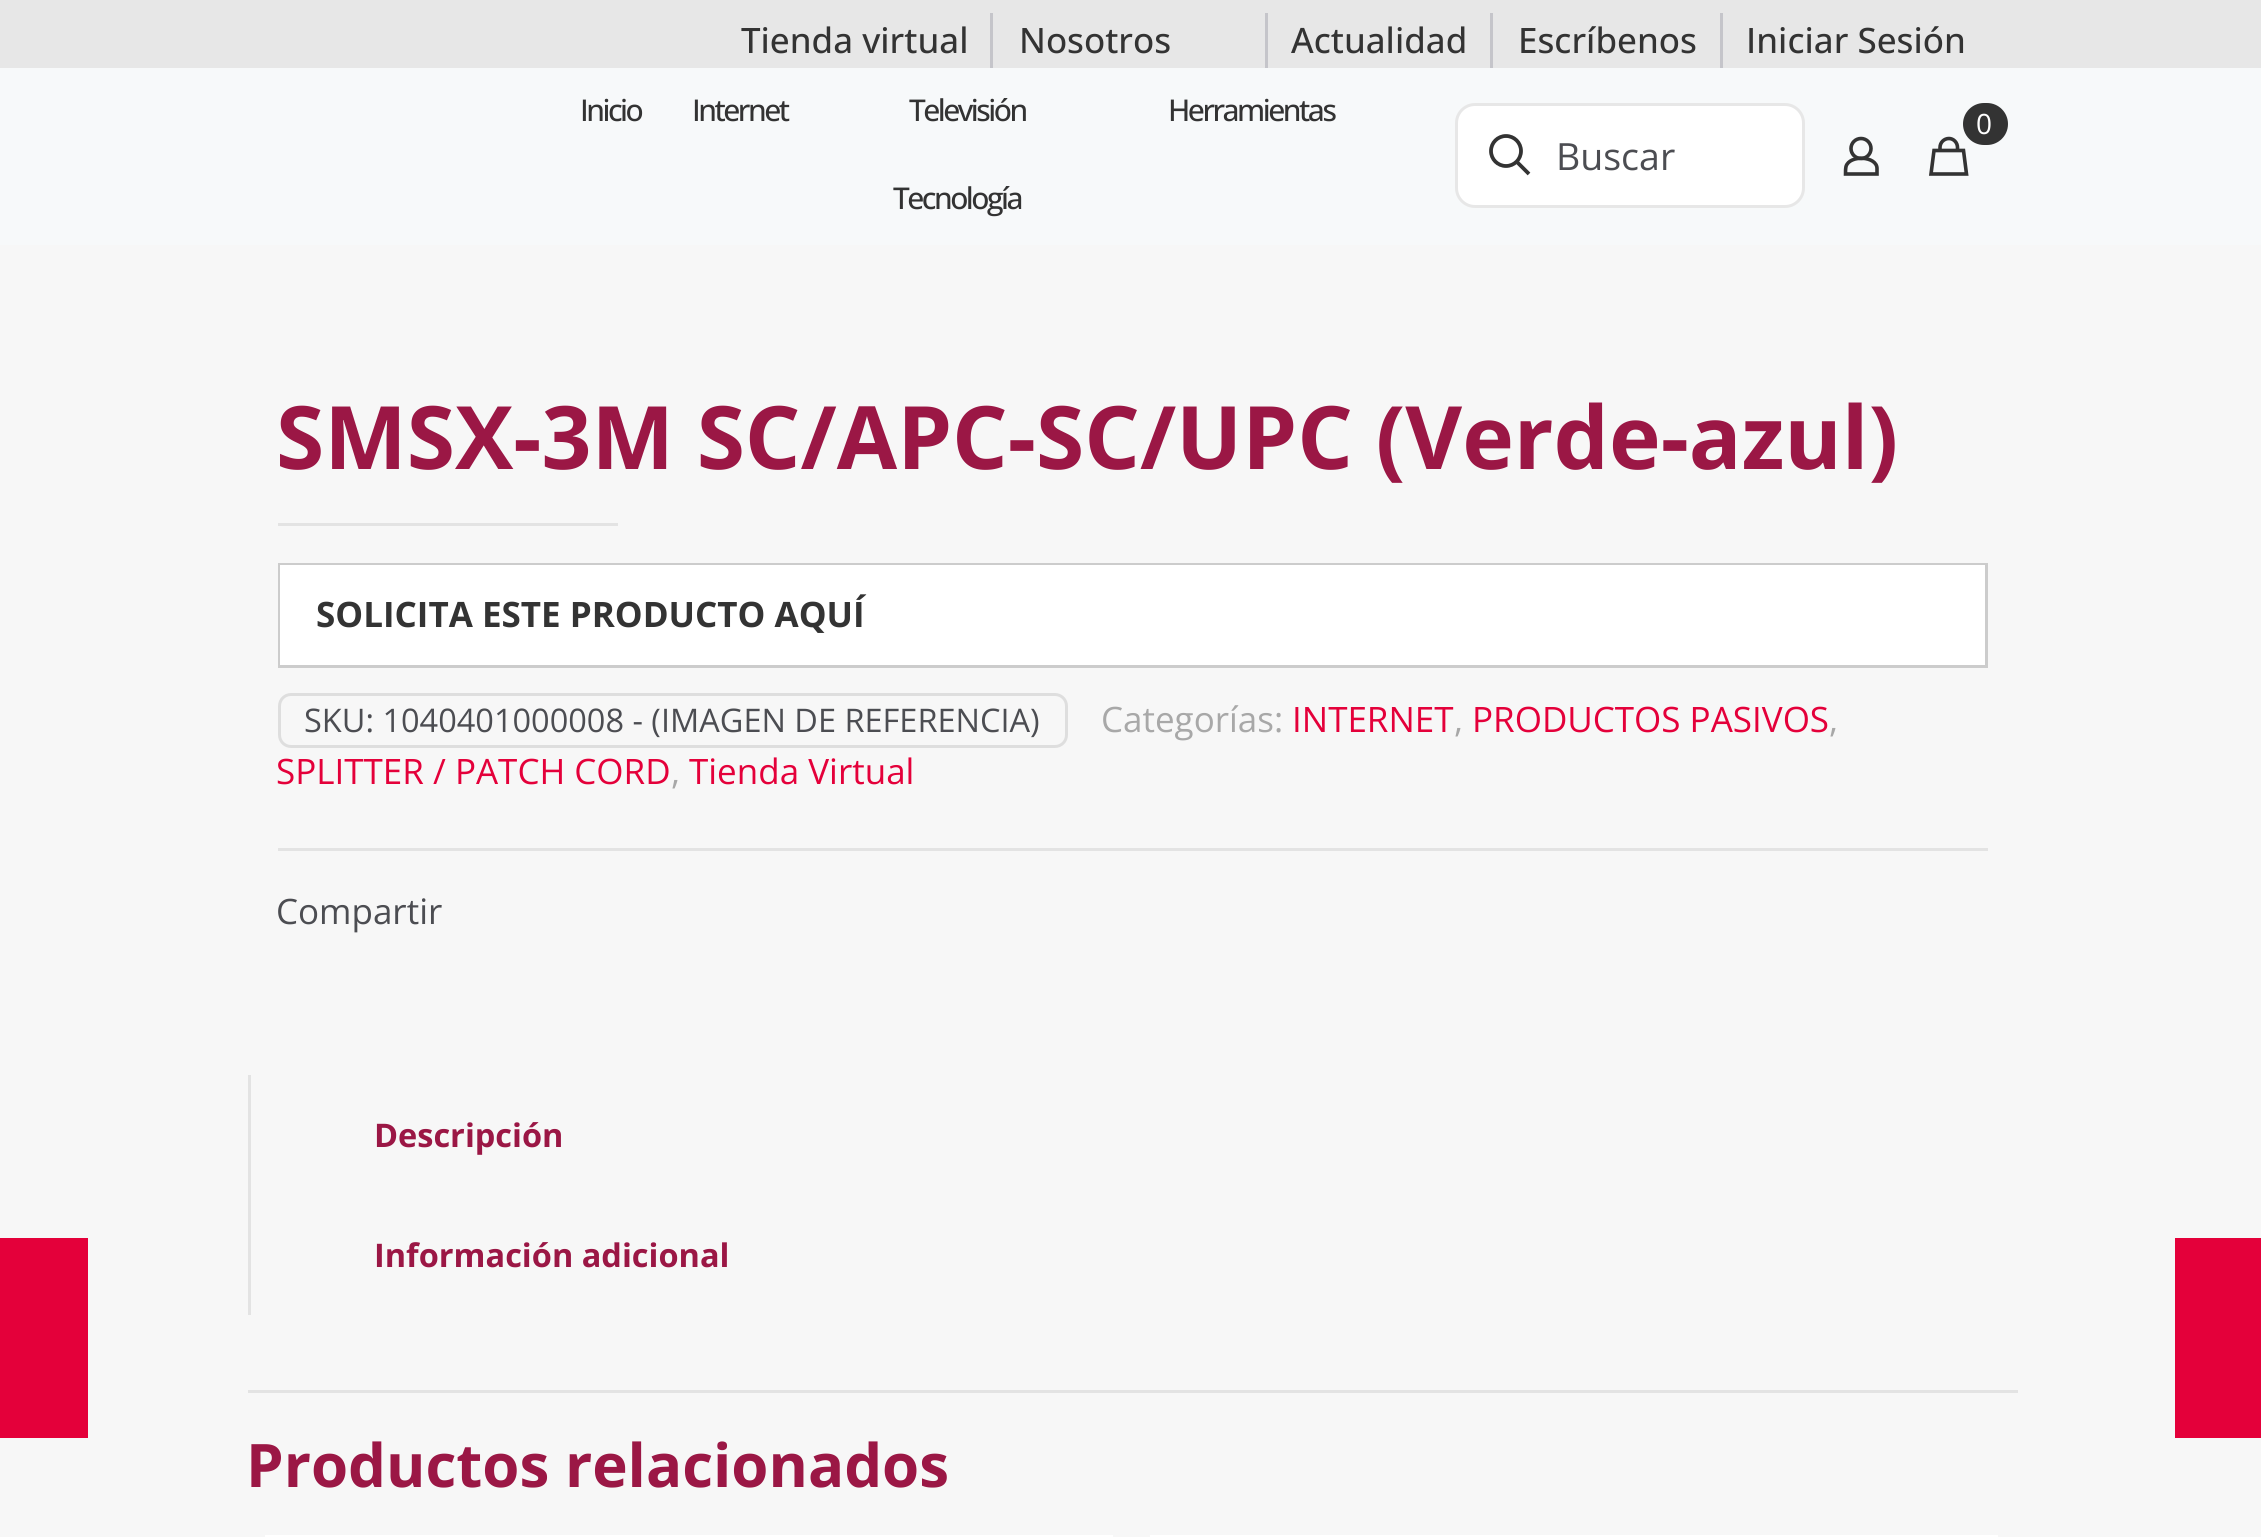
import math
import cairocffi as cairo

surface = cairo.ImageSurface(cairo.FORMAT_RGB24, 2261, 1537)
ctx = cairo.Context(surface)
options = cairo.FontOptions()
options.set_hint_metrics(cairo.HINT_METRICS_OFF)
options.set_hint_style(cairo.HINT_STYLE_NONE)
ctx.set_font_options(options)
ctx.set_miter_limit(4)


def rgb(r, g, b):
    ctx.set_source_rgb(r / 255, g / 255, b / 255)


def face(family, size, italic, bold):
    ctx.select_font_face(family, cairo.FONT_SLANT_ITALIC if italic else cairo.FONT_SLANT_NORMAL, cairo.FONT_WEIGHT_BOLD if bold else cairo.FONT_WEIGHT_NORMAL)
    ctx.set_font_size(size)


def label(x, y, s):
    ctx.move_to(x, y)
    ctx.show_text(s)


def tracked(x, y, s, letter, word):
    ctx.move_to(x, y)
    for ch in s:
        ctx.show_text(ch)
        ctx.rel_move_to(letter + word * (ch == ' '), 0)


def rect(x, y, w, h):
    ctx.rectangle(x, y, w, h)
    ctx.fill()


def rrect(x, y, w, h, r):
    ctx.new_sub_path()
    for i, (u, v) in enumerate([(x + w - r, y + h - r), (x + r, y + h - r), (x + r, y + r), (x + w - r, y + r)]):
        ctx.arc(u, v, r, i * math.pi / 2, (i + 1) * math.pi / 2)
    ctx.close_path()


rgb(247, 247, 247)
ctx.paint()
rgb(228, 0, 58)
rect(0, 1238, 88, 200)
rgb(231, 231, 231)
rect(0, 0, 2261, 68)
face('Open Sans Medium', 35, 0, 0)
rgb(51, 51, 51)
label(741, 53, 'Tienda virtual')
rgb(197, 197, 202)
rect(990, 13, 3, 55)
rgb(51, 51, 51)
label(1019, 53, 'Nosotros')
rgb(197, 197, 202)
rect(1265, 13, 3, 55)
rgb(51, 51, 51)
label(1291, 53, 'Actualidad')
rgb(197, 197, 202)
rect(1490, 13, 3, 55)
rgb(51, 51, 51)
label(1518, 53, 'Escríbenos')
rgb(197, 197, 202)
rect(1720, 13, 3, 55)
rgb(51, 51, 51)
label(1746, 53, 'Iniciar Sesión')
rgb(247, 249, 250)
rect(0, 68, 2261, 177)
face('Open Sans Medium', 30, 0, 0)
rgb(51, 51, 51)
tracked(580, 121, 'Inicio', -2.5, 0)
tracked(692, 121, 'Internet', -2.5, 0)
tracked(909, 121, 'Televisión', -2.5, 0)
tracked(1168, 121, 'Herramientas', -2.5, 0)
tracked(893, 209, 'Tecnología', -2.5, 0)
ctx.new_path()
ctx.move_to(1966.5, 174)
ctx.line_to(1931, 174)
ctx.line_to(1934, 150.5)
ctx.line_to(1963.5, 150.5)
ctx.close_path()
ctx.move_to(1940, 150.5)
ctx.line_to(1940, 147.5)
ctx.curve_to(1940, 142.5, 1944, 138.5, 1949, 138.5)
ctx.curve_to(1953.5, 138.5, 1957.5, 142.5, 1957.5, 147.5)
ctx.line_to(1957.5, 150.5)
ctx.set_line_width(3.6)
ctx.stroke()
rrect(1963, 103, 45, 42, 21)
ctx.fill()
face('Open Sans', 28, 0, 0)
rgb(255, 255, 255)
label(1976, 134, '0')
rrect(1456.5, 104.5, 347, 102, 18.5)
ctx.fill_preserve()
rgb(231, 231, 231)
ctx.set_line_width(3)
ctx.stroke()
ctx.arc(1506, 151, 15, 0, 2 * math.pi)
rgb(51, 51, 51)
ctx.set_line_width(3.8)
ctx.stroke()
ctx.new_path()
ctx.move_to(1516.5, 161.5)
ctx.line_to(1529, 174)
ctx.stroke()
face('Open Sans', 37.5, 0, 0)
rgb(76, 77, 82)
label(1556, 170, 'Buscar')
ctx.new_path()
ctx.arc(1861, 148.5, 10, 0, 2 * math.pi)
rgb(51, 51, 51)
ctx.set_line_width(3.6)
ctx.stroke()
ctx.new_path()
ctx.move_to(1877, 168.5)
ctx.line_to(1877, 174)
ctx.line_to(1845.5, 174)
ctx.curve_to(1845.5, 171.5, 1845.5, 169, 1846, 166.5)
ctx.curve_to(1849.5, 154.5, 1877, 156, 1877, 168.5)
ctx.close_path()
ctx.stroke()
face('Open Sans', 87.5, 0, 1)
rgb(155, 23, 69)
label(276, 469, 'SMSX-3M SC/APC-SC/UPC (Verde-azul)')
rgb(227, 227, 227)
rect(278, 523, 340, 3)
ctx.rectangle(279.5, 564.5, 1707, 102)
rgb(204, 204, 204)
ctx.set_line_width(3)
ctx.stroke()
rgb(255, 255, 255)
rect(280, 565, 1705, 100)
face('Open Sans', 35, 0, 1)
rgb(51, 51, 51)
label(316, 627, 'SOLICITA ESTE PRODUCTO AQUÍ')
rrect(279.5, 694.5, 787, 52, 11.5)
rgb(222, 222, 222)
ctx.stroke()
face('Open Sans', 32.5, 0, 0)
rgb(76, 77, 82)
label(304, 732, 'SKU: 1040401000008 - (IMAGEN DE REFERENCIA)')
face('Open Sans', 35, 0, 0)
rgb(168, 168, 168)
label(1101, 732, 'Categorías:')
rgb(228, 0, 58)
label(1292, 732, 'INTERNET')
rgb(168, 168, 168)
label(1454, 732, ',')
rgb(228, 0, 58)
label(1472, 732, 'PRODUCTOS PASIVOS')
rgb(168, 168, 168)
label(1829, 732, ',')
rgb(228, 0, 58)
label(276, 784, 'SPLITTER / PATCH CORD')
rgb(168, 168, 168)
label(671, 784, ',')
rgb(228, 0, 58)
label(689, 784, 'Tienda Virtual')
rgb(227, 227, 227)
rect(278, 848, 1710, 3)
rgb(76, 77, 82)
label(276, 924, 'Compartir')
rgb(227, 227, 227)
rect(248, 1075, 3, 240)
face('Open Sans', 32.5, 0, 1)
rgb(155, 23, 69)
label(374, 1147, 'Descripción')
label(374, 1267, 'Información adicional')
rgb(227, 227, 227)
rect(248, 1390, 1770, 3)
face('Open Sans', 60, 0, 1)
rgb(155, 23, 69)
label(246, 1487, 'Productos relacionados')
rgb(255, 255, 255)
rect(265, 1535, 848, 2)
rect(1150, 1535, 848, 2)
rgb(228, 0, 58)
rect(2175, 1238, 86, 200)
surface.write_to_png('render.png')
